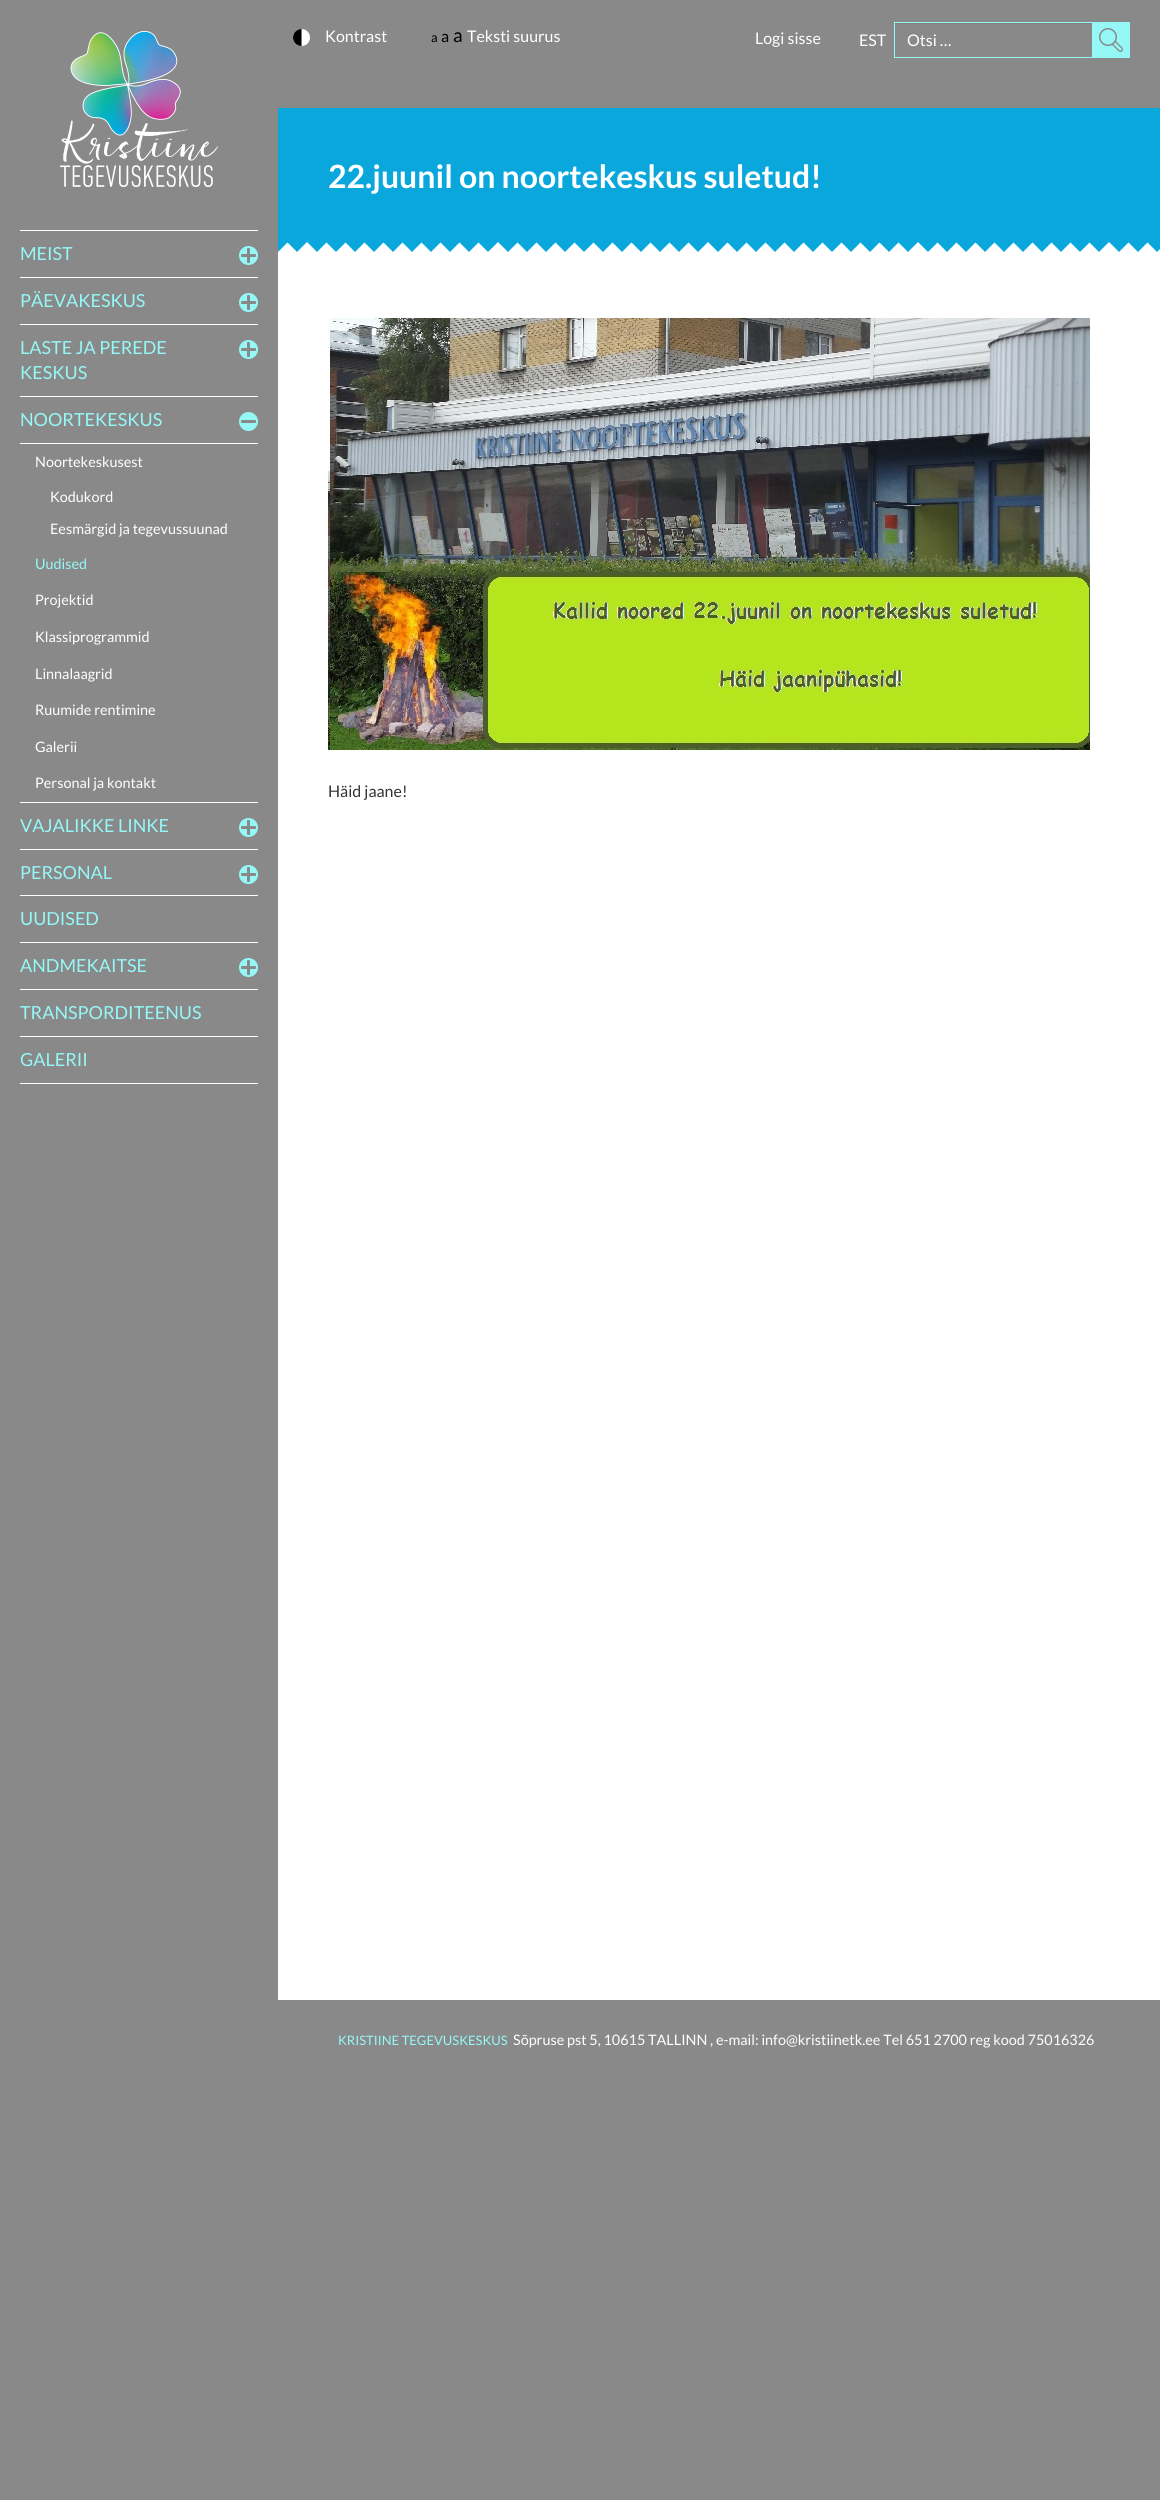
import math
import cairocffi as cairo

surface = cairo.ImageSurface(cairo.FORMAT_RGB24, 1160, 2500)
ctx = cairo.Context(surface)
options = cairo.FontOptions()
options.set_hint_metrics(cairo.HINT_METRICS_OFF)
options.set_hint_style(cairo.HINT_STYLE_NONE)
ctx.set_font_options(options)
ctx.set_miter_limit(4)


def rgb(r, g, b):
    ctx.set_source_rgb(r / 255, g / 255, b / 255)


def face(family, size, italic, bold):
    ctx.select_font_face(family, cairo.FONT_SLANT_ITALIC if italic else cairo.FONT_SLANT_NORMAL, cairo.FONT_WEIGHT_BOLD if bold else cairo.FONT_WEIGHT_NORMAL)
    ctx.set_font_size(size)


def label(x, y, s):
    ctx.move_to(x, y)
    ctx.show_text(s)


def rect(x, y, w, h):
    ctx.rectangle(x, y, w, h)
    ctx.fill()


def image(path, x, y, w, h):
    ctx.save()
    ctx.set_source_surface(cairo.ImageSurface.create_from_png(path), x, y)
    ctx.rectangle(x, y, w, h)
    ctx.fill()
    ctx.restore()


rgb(137, 137, 137)
ctx.paint()
image('image0.png', 60, 30, 158, 157)
rgb(255, 255, 255)
rect(20, 1083, 238, 1)
rect(20, 230, 238, 1)
face('Lato', 18, 0, 0)
rgb(149, 247, 246)
label(20, 260, 'MEIST')
image('image1.png', 239, 246, 19, 19)
rgb(255, 255, 255)
rect(20, 277, 238, 1)
rgb(149, 247, 246)
label(20, 307, 'PÄEVAKESKUS')
image('image1.png', 239, 293, 19, 19)
rgb(255, 255, 255)
rect(20, 324, 238, 1)
rgb(149, 247, 246)
label(20, 354, 'LASTE JA PEREDE')
label(20, 379, 'KESKUS')
image('image1.png', 239, 340, 19, 19)
rgb(255, 255, 255)
rect(20, 396, 238, 1)
rgb(149, 247, 246)
label(20, 426, 'NOORTEKESKUS')
image('image2.png', 239, 412, 19, 19)
rgb(255, 255, 255)
rect(20, 443, 238, 1)
face('Lato', 14.4, 0, 0)
label(35, 467, 'Noortekeskusest')
label(50, 502, 'Kodukord')
label(50, 534, 'Eesmärgid ja tegevussuunad')
rgb(149, 247, 246)
label(35, 569, 'Uudised')
rgb(255, 255, 255)
label(35, 605, 'Projektid')
label(35, 642, 'Klassiprogrammid')
label(35, 679, 'Linnalaagrid')
label(35, 715, 'Ruumide rentimine')
label(35, 752, 'Galerii')
label(35, 788, 'Personal ja kontakt')
rect(20, 802, 238, 1)
face('Lato', 18, 0, 0)
rgb(149, 247, 246)
label(20, 832, 'VAJALIKKE LINKE')
image('image1.png', 239, 818, 19, 19)
rgb(255, 255, 255)
rect(20, 849, 238, 1)
rgb(149, 247, 246)
label(20, 879, 'PERSONAL')
image('image1.png', 239, 865, 19, 19)
rgb(255, 255, 255)
rect(20, 895, 238, 1)
rgb(149, 247, 246)
label(20, 925, 'UUDISED')
rgb(255, 255, 255)
rect(20, 942, 238, 1)
rgb(149, 247, 246)
label(20, 972, 'ANDMEKAITSE')
image('image1.png', 239, 958, 19, 19)
rgb(255, 255, 255)
rect(20, 989, 238, 1)
rgb(149, 247, 246)
label(20, 1019, 'TRANSPORDITEENUS')
rgb(255, 255, 255)
rect(20, 1036, 238, 1)
rgb(149, 247, 246)
label(20, 1066, 'GALERII')
rgb(255, 255, 255)
rect(278, 242, 882, 1758)
image('image3.png', 293, 29, 17, 17)
face('Lato', 16, 0, 0)
label(325, 42, 'Kontrast')
face('Lato', 13, 0, 0)
rgb(0, 0, 0)
label(431, 42, 'a')
face('Lato', 16, 0, 0)
label(441, 42, 'a')
face('Lato', 19, 0, 0)
label(453, 42, 'a')
face('Lato', 16, 0, 0)
rgb(255, 255, 255)
label(467, 42, 'Teksti suurus')
label(755, 44, 'Logi sisse')
label(859, 46, 'EST')
rgb(127, 127, 127)
rect(895, 23, 197, 1)
ctx.rectangle(894.5, 22.5, 235, 35)
rgb(149, 247, 246)
ctx.set_line_width(1)
ctx.stroke()
rgb(255, 255, 255)
label(907, 46, 'Otsi …')
rgb(149, 247, 246)
rect(1092, 23, 37, 34)
image('image4.png', 1099, 28, 24, 24)
rgb(10, 167, 221)
rect(278, 108, 882, 128)
face('Lato', 32, 0, 1)
rgb(255, 255, 255)
label(328, 188, '22.juunil on noortekeskus suletud!')
ctx.save()
ctx.rectangle(278, 236, 882, 38)
ctx.clip()
rgb(10, 167, 221)
ctx.new_path()
ctx.move_to(262, 236)
ctx.line_to(294, 236)
ctx.line_to(278, 252)
ctx.close_path()
ctx.fill()
ctx.restore()
rgb(10, 167, 221)
ctx.new_path()
ctx.move_to(281, 236)
ctx.line_to(313, 236)
ctx.line_to(297, 252)
ctx.close_path()
ctx.fill()
ctx.new_path()
ctx.move_to(301, 236)
ctx.line_to(333, 236)
ctx.line_to(317, 252)
ctx.close_path()
ctx.fill()
ctx.new_path()
ctx.move_to(320, 236)
ctx.line_to(352, 236)
ctx.line_to(336, 252)
ctx.close_path()
ctx.fill()
ctx.new_path()
ctx.move_to(339, 236)
ctx.line_to(371, 236)
ctx.line_to(355, 252)
ctx.close_path()
ctx.fill()
ctx.new_path()
ctx.move_to(358, 236)
ctx.line_to(390, 236)
ctx.line_to(374, 252)
ctx.close_path()
ctx.fill()
ctx.new_path()
ctx.move_to(377, 236)
ctx.line_to(409, 236)
ctx.line_to(393, 252)
ctx.close_path()
ctx.fill()
ctx.new_path()
ctx.move_to(396, 236)
ctx.line_to(428, 236)
ctx.line_to(412, 252)
ctx.close_path()
ctx.fill()
ctx.new_path()
ctx.move_to(415, 236)
ctx.line_to(447, 236)
ctx.line_to(431, 252)
ctx.close_path()
ctx.fill()
ctx.new_path()
ctx.move_to(434, 236)
ctx.line_to(466, 236)
ctx.line_to(450, 252)
ctx.close_path()
ctx.fill()
ctx.new_path()
ctx.move_to(453, 236)
ctx.line_to(485, 236)
ctx.line_to(469, 252)
ctx.close_path()
ctx.fill()
ctx.new_path()
ctx.move_to(472, 236)
ctx.line_to(504, 236)
ctx.line_to(488, 252)
ctx.close_path()
ctx.fill()
ctx.new_path()
ctx.move_to(492, 236)
ctx.line_to(524, 236)
ctx.line_to(508, 252)
ctx.close_path()
ctx.fill()
ctx.new_path()
ctx.move_to(511, 236)
ctx.line_to(543, 236)
ctx.line_to(527, 252)
ctx.close_path()
ctx.fill()
ctx.new_path()
ctx.move_to(530, 236)
ctx.line_to(562, 236)
ctx.line_to(546, 252)
ctx.close_path()
ctx.fill()
ctx.new_path()
ctx.move_to(549, 236)
ctx.line_to(581, 236)
ctx.line_to(565, 252)
ctx.close_path()
ctx.fill()
ctx.new_path()
ctx.move_to(568, 236)
ctx.line_to(600, 236)
ctx.line_to(584, 252)
ctx.close_path()
ctx.fill()
ctx.new_path()
ctx.move_to(587, 236)
ctx.line_to(619, 236)
ctx.line_to(603, 252)
ctx.close_path()
ctx.fill()
ctx.new_path()
ctx.move_to(606, 236)
ctx.line_to(638, 236)
ctx.line_to(622, 252)
ctx.close_path()
ctx.fill()
ctx.new_path()
ctx.move_to(625, 236)
ctx.line_to(657, 236)
ctx.line_to(641, 252)
ctx.close_path()
ctx.fill()
ctx.new_path()
ctx.move_to(644, 236)
ctx.line_to(676, 236)
ctx.line_to(660, 252)
ctx.close_path()
ctx.fill()
ctx.new_path()
ctx.move_to(663, 236)
ctx.line_to(695, 236)
ctx.line_to(679, 252)
ctx.close_path()
ctx.fill()
ctx.new_path()
ctx.move_to(682, 236)
ctx.line_to(714, 236)
ctx.line_to(698, 252)
ctx.close_path()
ctx.fill()
ctx.new_path()
ctx.move_to(702, 236)
ctx.line_to(734, 236)
ctx.line_to(718, 252)
ctx.close_path()
ctx.fill()
ctx.new_path()
ctx.move_to(721, 236)
ctx.line_to(753, 236)
ctx.line_to(737, 252)
ctx.close_path()
ctx.fill()
ctx.new_path()
ctx.move_to(740, 236)
ctx.line_to(772, 236)
ctx.line_to(756, 252)
ctx.close_path()
ctx.fill()
ctx.new_path()
ctx.move_to(759, 236)
ctx.line_to(791, 236)
ctx.line_to(775, 252)
ctx.close_path()
ctx.fill()
ctx.new_path()
ctx.move_to(778, 236)
ctx.line_to(810, 236)
ctx.line_to(794, 252)
ctx.close_path()
ctx.fill()
ctx.new_path()
ctx.move_to(797, 236)
ctx.line_to(829, 236)
ctx.line_to(813, 252)
ctx.close_path()
ctx.fill()
ctx.new_path()
ctx.move_to(816, 236)
ctx.line_to(848, 236)
ctx.line_to(832, 252)
ctx.close_path()
ctx.fill()
ctx.new_path()
ctx.move_to(835, 236)
ctx.line_to(867, 236)
ctx.line_to(851, 252)
ctx.close_path()
ctx.fill()
ctx.new_path()
ctx.move_to(854, 236)
ctx.line_to(886, 236)
ctx.line_to(870, 252)
ctx.close_path()
ctx.fill()
ctx.new_path()
ctx.move_to(873, 236)
ctx.line_to(905, 236)
ctx.line_to(889, 252)
ctx.close_path()
ctx.fill()
ctx.new_path()
ctx.move_to(892, 236)
ctx.line_to(924, 236)
ctx.line_to(908, 252)
ctx.close_path()
ctx.fill()
ctx.new_path()
ctx.move_to(912, 236)
ctx.line_to(944, 236)
ctx.line_to(928, 252)
ctx.close_path()
ctx.fill()
ctx.new_path()
ctx.move_to(931, 236)
ctx.line_to(963, 236)
ctx.line_to(947, 252)
ctx.close_path()
ctx.fill()
ctx.new_path()
ctx.move_to(950, 236)
ctx.line_to(982, 236)
ctx.line_to(966, 252)
ctx.close_path()
ctx.fill()
ctx.new_path()
ctx.move_to(969, 236)
ctx.line_to(1001, 236)
ctx.line_to(985, 252)
ctx.close_path()
ctx.fill()
ctx.new_path()
ctx.move_to(988, 236)
ctx.line_to(1020, 236)
ctx.line_to(1004, 252)
ctx.close_path()
ctx.fill()
ctx.new_path()
ctx.move_to(1007, 236)
ctx.line_to(1039, 236)
ctx.line_to(1023, 252)
ctx.close_path()
ctx.fill()
ctx.new_path()
ctx.move_to(1026, 236)
ctx.line_to(1058, 236)
ctx.line_to(1042, 252)
ctx.close_path()
ctx.fill()
ctx.new_path()
ctx.move_to(1045, 236)
ctx.line_to(1077, 236)
ctx.line_to(1061, 252)
ctx.close_path()
ctx.fill()
ctx.new_path()
ctx.move_to(1064, 236)
ctx.line_to(1096, 236)
ctx.line_to(1080, 252)
ctx.close_path()
ctx.fill()
ctx.new_path()
ctx.move_to(1083, 236)
ctx.line_to(1115, 236)
ctx.line_to(1099, 252)
ctx.close_path()
ctx.fill()
ctx.new_path()
ctx.move_to(1103, 236)
ctx.line_to(1135, 236)
ctx.line_to(1119, 252)
ctx.close_path()
ctx.fill()
ctx.new_path()
ctx.move_to(1122, 236)
ctx.line_to(1154, 236)
ctx.line_to(1138, 252)
ctx.close_path()
ctx.fill()
ctx.new_path()
ctx.move_to(1141, 236)
ctx.line_to(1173, 236)
ctx.line_to(1157, 252)
ctx.close_path()
ctx.fill()
image('image5.png', 328, 318, 762, 432)
face('Lato', 16, 0, 0)
rgb(51, 51, 51)
label(328, 797, 'Häid jaane!')
face('Lato', 13, 0, 0)
rgb(149, 247, 246)
label(338, 2045, 'KRISTIINE TEGEVUSKESKUS')
face('Lato', 14.4, 0, 0)
rgb(255, 255, 255)
label(513, 2045, 'Sõpruse pst 5, 10615 TALLINN , e-mail: info@kristiinetk.ee Tel 651 2700 reg kood 75016326')
surface.write_to_png('render.png')
